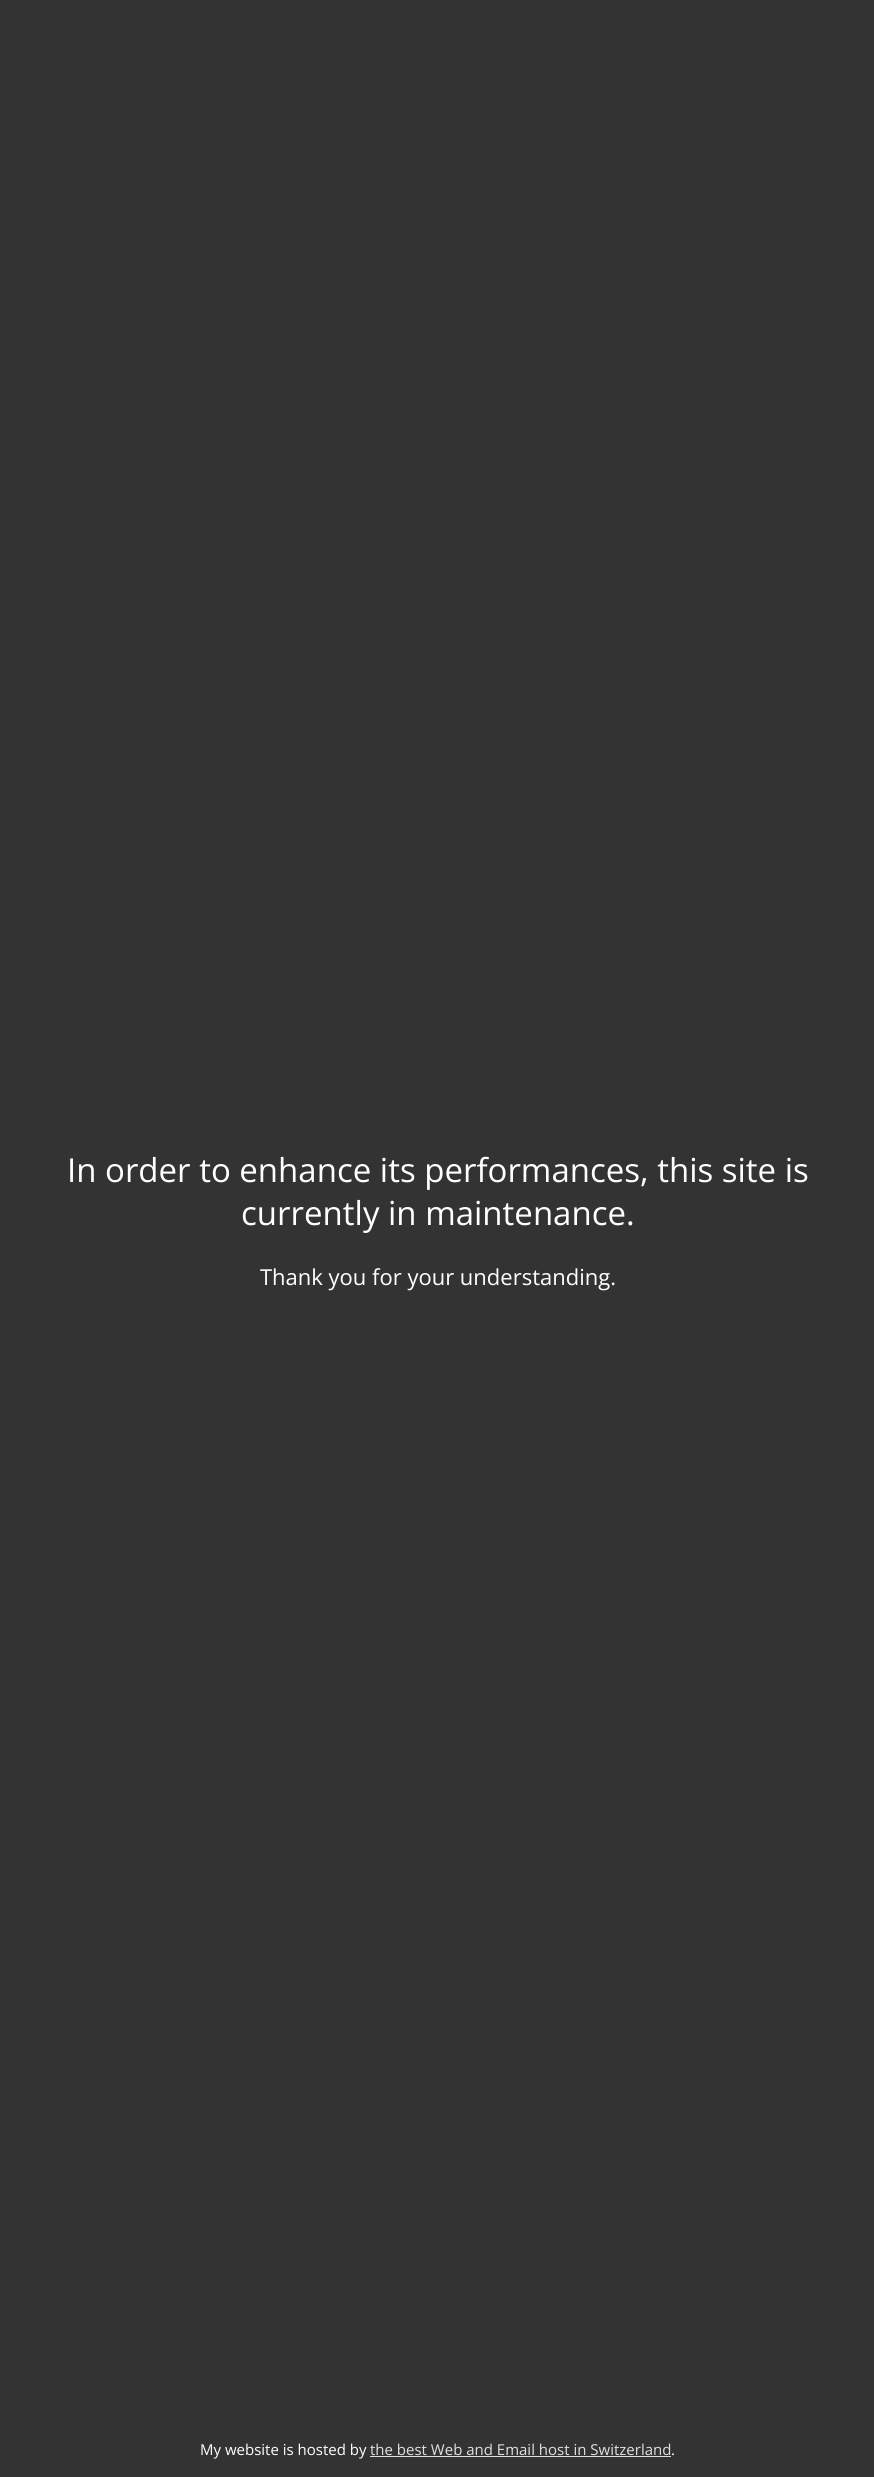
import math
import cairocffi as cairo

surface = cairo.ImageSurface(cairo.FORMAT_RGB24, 874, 2477)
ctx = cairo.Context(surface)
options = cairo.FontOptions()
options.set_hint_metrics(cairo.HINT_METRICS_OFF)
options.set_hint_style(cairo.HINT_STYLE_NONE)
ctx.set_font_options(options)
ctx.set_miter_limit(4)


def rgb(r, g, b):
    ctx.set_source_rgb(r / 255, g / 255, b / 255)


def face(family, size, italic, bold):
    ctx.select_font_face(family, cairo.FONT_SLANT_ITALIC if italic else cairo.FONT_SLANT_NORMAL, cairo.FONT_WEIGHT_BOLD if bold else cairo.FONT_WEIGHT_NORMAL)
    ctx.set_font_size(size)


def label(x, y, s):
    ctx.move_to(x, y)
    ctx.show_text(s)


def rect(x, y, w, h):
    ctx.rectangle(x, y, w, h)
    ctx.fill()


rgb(51, 51, 51)
ctx.paint()
face('Open Sans', 33, 0, 0)
rgb(255, 255, 255)
label(67, 1182, 'In order to enhance its performances, this site is')
label(241, 1225, 'currently in maintenance.')
face('Open Sans', 22, 0, 0)
label(260, 1285, 'Thank you for your understanding.')
face('Open Sans', 15, 0, 0)
label(200, 2455, 'My website is hosted by')
rgb(224, 224, 224)
label(370, 2455, 'the best Web and Email host in Switzerland')
rect(370, 2456, 301, 1)
rgb(255, 255, 255)
label(671, 2455, '.')
surface.write_to_png('render.png')
